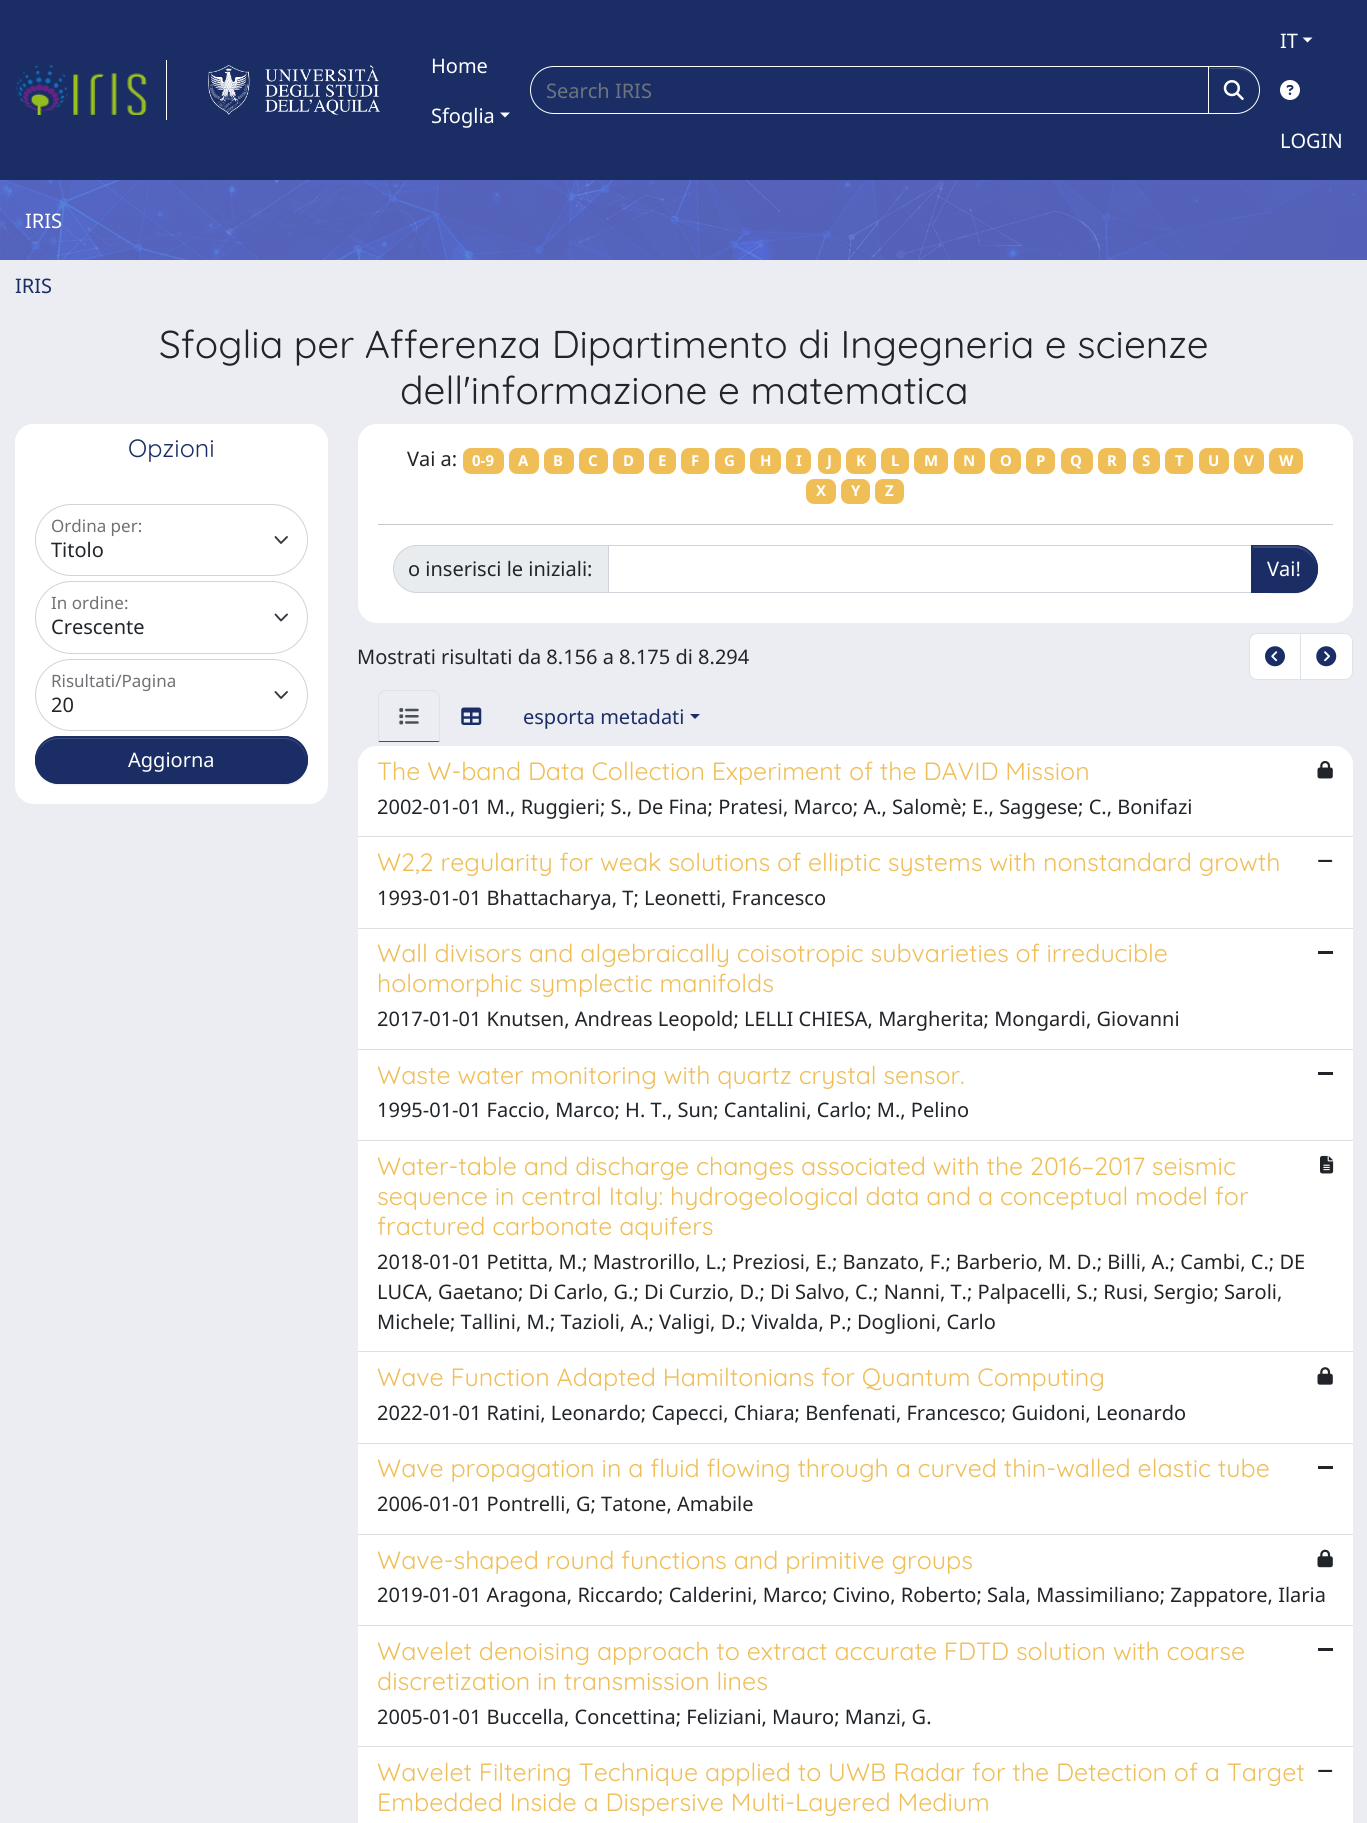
import math
import cairocffi as cairo

surface = cairo.ImageSurface(cairo.FORMAT_RGB24, 1367, 1823)
ctx = cairo.Context(surface)
options = cairo.FontOptions()
options.set_hint_metrics(cairo.HINT_METRICS_OFF)
options.set_hint_style(cairo.HINT_STYLE_NONE)
ctx.set_font_options(options)
ctx.set_miter_limit(4)


def rgb(r, g, b):
    ctx.set_source_rgb(r / 255, g / 255, b / 255)


def face(family, size, italic, bold):
    ctx.select_font_face(family, cairo.FONT_SLANT_ITALIC if italic else cairo.FONT_SLANT_NORMAL, cairo.FONT_WEIGHT_BOLD if bold else cairo.FONT_WEIGHT_NORMAL)
    ctx.set_font_size(size)


def label(x, y, s):
    ctx.move_to(x, y)
    ctx.show_text(s)


def rect(x, y, w, h):
    ctx.rectangle(x, y, w, h)
    ctx.fill()


def rrect(x, y, w, h, r):
    ctx.new_sub_path()
    for i, (u, v) in enumerate([(x + w - r, y + h - r), (x + r, y + h - r), (x + r, y + r), (x + w - r, y + r)]):
        ctx.arc(u, v, r, i * math.pi / 2, (i + 1) * math.pi / 2)
    ctx.close_path()


def soft_shadow(x, y, w, h, r, blur, alpha):
    ctx.push_group_with_content(cairo.CONTENT_ALPHA)
    ctx.set_operator(cairo.OPERATOR_SOURCE)
    for i in range(15, -16, -2):
        e = blur * i / 6
        if min(w, h) + 2 * e > 0:
            ctx.set_source_rgba(0, 0, 0, alpha * math.erfc((i - 1) / 8.5) / 2)
            rrect(x - e, y - e, w + 2 * e, h + 2 * e, max(0, min(r + e + blur * .6, min(w, h) / 2 + e)))
            ctx.fill()
    ctx.mask(ctx.pop_group())


def image(path, x, y, w, h):
    ctx.save()
    ctx.set_source_surface(cairo.ImageSurface.create_from_png(path), x, y)
    ctx.rectangle(x, y, w, h)
    ctx.fill()
    ctx.restore()


rgb(236, 237, 242)
ctx.paint()
rgb(26, 46, 101)
rect(0, 0, 1367, 180)
rgb(255, 255, 255)
rect(166, 60, 1, 60)
image('image0.png', 15, 65, 132, 50)
image('image1.png', 208, 65, 172, 50)
face('Noto Sans', 20, 0, 0)
label(431, 73, 'Home')
label(431, 123, 'Sfoglia')
ctx.new_path()
ctx.move_to(500, 112.5)
ctx.line_to(510, 112.5)
ctx.line_to(505, 117.5)
ctx.close_path()
ctx.fill()
ctx.new_path()
ctx.move_to(554, 66.5)
ctx.line_to(1208.5, 66.5)
ctx.line_to(1208.5, 113.5)
ctx.line_to(554, 113.5)
ctx.curve_to(541, 113.5, 530.5, 103, 530.5, 90)
ctx.curve_to(530.5, 77, 541, 66.5, 554, 66.5)
ctx.close_path()
ctx.set_line_width(1)
ctx.stroke()
rgb(108, 117, 125)
label(546, 98, 'Search IRIS')
rgb(0, 0, 0)
soft_shadow(1208, 68, 52, 47, 23.5, 0.5, 0.07)
rgb(26, 46, 101)
ctx.new_path()
ctx.move_to(1208, 66)
ctx.line_to(1236, 66)
ctx.curve_to(1249.5, 66, 1260, 76.5, 1260, 90)
ctx.curve_to(1260, 103.5, 1249.5, 114, 1236, 114)
ctx.line_to(1208, 114)
ctx.close_path()
ctx.fill()
rgb(60, 77, 124)
ctx.new_path()
ctx.move_to(1209, 69)
ctx.line_to(1236, 69)
ctx.curve_to(1249, 69, 1259, 79, 1259, 91)
ctx.curve_to(1259, 80, 1251, 71, 1241, 68)
ctx.line_to(1209, 68)
ctx.close_path()
ctx.fill()
ctx.new_path()
ctx.move_to(1208.5, 66.5)
ctx.line_to(1236, 66.5)
ctx.curve_to(1249, 66.5, 1259.5, 77, 1259.5, 90)
ctx.curve_to(1259.5, 103, 1249, 113.5, 1236, 113.5)
ctx.line_to(1208.5, 113.5)
ctx.close_path()
rgb(255, 255, 255)
ctx.stroke()
image('image2.png', 1223, 80, 21, 20)
label(1280, 48, 'IT')
ctx.new_path()
ctx.move_to(1302.5, 37.5)
ctx.line_to(1312.5, 37.5)
ctx.line_to(1307.5, 42.5)
ctx.close_path()
ctx.fill()
image('image3.png', 1280, 80, 20, 20)
label(1280, 148, 'LOGIN')
image('image4.png', 0, 180, 1367, 80)
label(25, 228, 'IRIS')
rgb(26, 46, 101)
label(15, 293, 'IRIS')
face('Quicksand Light', 38.8, 0, 0)
rgb(33, 37, 41)
label(159, 358, 'Sfoglia per Afferenza Dipartimento di Ingegneria e scienze')
label(400, 404, 'dell\'informazione e matematica')
rgb(255, 255, 255)
rrect(15, 424, 313, 380, 19)
ctx.fill()
ctx.new_path()
ctx.move_to(34, 424)
ctx.line_to(309, 424)
ctx.curve_to(319.5, 424, 328, 432.5, 328, 443)
ctx.line_to(328, 484)
ctx.line_to(15, 484)
ctx.line_to(15, 443)
ctx.curve_to(15, 432.5, 23.5, 424, 34, 424)
ctx.close_path()
ctx.fill()
face('Quicksand Light', 25, 0, 0)
rgb(26, 46, 101)
label(128, 457, 'Opzioni')
ctx.new_path()
ctx.move_to(275.5, 537)
ctx.line_to(281, 543)
ctx.line_to(287, 537)
rgb(52, 58, 64)
ctx.set_line_width(1.9)
ctx.set_line_cap(cairo.LINE_CAP_ROUND)
ctx.set_line_join(cairo.LINE_JOIN_ROUND)
ctx.stroke()
rrect(35.5, 504.5, 272, 71, 35.5)
rgb(206, 212, 218)
ctx.set_line_width(1)
ctx.set_line_cap(cairo.LINE_CAP_BUTT)
ctx.set_line_join(cairo.LINE_JOIN_MITER)
ctx.stroke()
face('Noto Sans', 17, 0, 0)
rgb(111, 113, 116)
label(51, 532, 'Ordina per:')
face('Noto Sans', 20, 0, 0)
rgb(33, 37, 41)
label(51, 557, 'Titolo')
ctx.new_path()
ctx.move_to(275.5, 614.5)
ctx.line_to(281, 620.5)
ctx.line_to(287, 614.5)
rgb(52, 58, 64)
ctx.set_line_width(1.9)
ctx.set_line_cap(cairo.LINE_CAP_ROUND)
ctx.set_line_join(cairo.LINE_JOIN_ROUND)
ctx.stroke()
rrect(35.5, 581.5, 272, 72, 36)
rgb(206, 212, 218)
ctx.set_line_width(1)
ctx.set_line_cap(cairo.LINE_CAP_BUTT)
ctx.set_line_join(cairo.LINE_JOIN_MITER)
ctx.stroke()
face('Noto Sans', 17, 0, 0)
rgb(111, 113, 116)
label(51, 609, 'In ordine:')
face('Noto Sans', 20, 0, 0)
rgb(33, 37, 41)
label(51, 634, 'Crescente')
ctx.new_path()
ctx.move_to(275.5, 692)
ctx.line_to(281, 698)
ctx.line_to(287, 692)
rgb(52, 58, 64)
ctx.set_line_width(1.9)
ctx.set_line_cap(cairo.LINE_CAP_ROUND)
ctx.set_line_join(cairo.LINE_JOIN_ROUND)
ctx.stroke()
rrect(35.5, 659.5, 272, 71, 35.5)
rgb(206, 212, 218)
ctx.set_line_width(1)
ctx.set_line_cap(cairo.LINE_CAP_BUTT)
ctx.set_line_join(cairo.LINE_JOIN_MITER)
ctx.stroke()
face('Noto Sans', 17, 0, 0)
rgb(111, 113, 116)
label(51, 687, 'Risultati/Pagina')
face('Noto Sans', 20, 0, 0)
rgb(33, 37, 41)
label(51, 712, '20')
rgb(0, 0, 0)
soft_shadow(35, 738, 273, 47, 23.5, 0.5, 0.07)
rgb(26, 46, 101)
rrect(35, 736, 273, 48, 24)
ctx.fill()
rgb(60, 77, 124)
ctx.new_path()
ctx.move_to(59, 739)
ctx.line_to(284, 739)
ctx.curve_to(296, 739, 306, 749, 306, 761)
ctx.line_to(306, 760)
ctx.curve_to(306, 748, 296, 738, 284, 738)
ctx.line_to(58, 738)
ctx.curve_to(46, 738, 36, 748, 36, 760)
ctx.line_to(36, 761)
ctx.curve_to(36, 749, 46, 739, 59, 739)
ctx.close_path()
ctx.fill()
rrect(35.5, 736.5, 272, 47, 23.5)
rgb(26, 46, 101)
ctx.stroke()
rgb(255, 255, 255)
label(128, 767, 'Aggiorna')
rrect(358, 424, 995, 199, 19)
ctx.fill()
rgb(33, 37, 41)
label(407, 466, 'Vai a:')
rgb(239, 190, 87)
rrect(463, 448, 41, 26, 8)
ctx.fill()
face('Noto Sans', 15, 0, 1)
rgb(255, 255, 255)
label(472, 466, '0-9')
rgb(239, 190, 87)
rrect(509, 448, 30, 26, 8)
ctx.fill()
rgb(255, 255, 255)
label(518, 466, 'A')
rgb(239, 190, 87)
rrect(544, 448, 30, 26, 8)
ctx.fill()
rgb(255, 255, 255)
label(553, 466, 'B')
rgb(239, 190, 87)
rrect(579, 448, 29, 26, 8)
ctx.fill()
rgb(255, 255, 255)
label(588, 466, 'C')
rgb(239, 190, 87)
rrect(613, 448, 31, 26, 8)
ctx.fill()
rgb(255, 255, 255)
label(623, 466, 'D')
rgb(239, 190, 87)
rrect(649, 448, 27, 26, 8)
ctx.fill()
rgb(255, 255, 255)
label(658, 466, 'E')
rgb(239, 190, 87)
rrect(681, 448, 28, 26, 8)
ctx.fill()
rgb(255, 255, 255)
label(691, 466, 'F')
rgb(239, 190, 87)
rrect(715, 448, 30, 26, 8)
ctx.fill()
rgb(255, 255, 255)
label(724, 466, 'G')
rgb(239, 190, 87)
rrect(750, 448, 31, 26, 8)
ctx.fill()
rgb(255, 255, 255)
label(760, 466, 'H')
rgb(239, 190, 87)
rrect(786, 448, 25, 26, 8)
ctx.fill()
rgb(255, 255, 255)
label(796, 466, 'I')
rgb(239, 190, 87)
rrect(818, 448, 23, 26, 8)
ctx.fill()
rgb(255, 255, 255)
label(827, 466, 'J')
rgb(239, 190, 87)
rrect(846, 448, 30, 26, 8)
ctx.fill()
rgb(255, 255, 255)
label(856, 466, 'K')
rgb(239, 190, 87)
rrect(881, 448, 28, 26, 8)
ctx.fill()
rgb(255, 255, 255)
label(891, 466, 'L')
rgb(239, 190, 87)
rrect(914, 448, 34, 26, 8)
ctx.fill()
rgb(255, 255, 255)
label(924, 466, 'M')
rgb(239, 190, 87)
rrect(954, 448, 31, 26, 8)
ctx.fill()
rgb(255, 255, 255)
label(963, 466, 'N')
rgb(239, 190, 87)
rrect(990, 448, 31, 26, 8)
ctx.fill()
rgb(255, 255, 255)
label(1000, 466, 'O')
rgb(239, 190, 87)
rrect(1026, 448, 29, 26, 8)
ctx.fill()
rgb(255, 255, 255)
label(1036, 466, 'P')
rgb(239, 190, 87)
rrect(1061, 448, 32, 26, 8)
ctx.fill()
rgb(255, 255, 255)
label(1070, 466, 'Q')
rgb(239, 190, 87)
rrect(1098, 448, 28, 26, 8)
ctx.fill()
rgb(255, 255, 255)
label(1107, 466, 'R')
rgb(239, 190, 87)
rrect(1133, 448, 27, 26, 8)
ctx.fill()
rgb(255, 255, 255)
label(1142, 466, 'S')
rgb(239, 190, 87)
rrect(1165, 448, 28, 26, 8)
ctx.fill()
rgb(255, 255, 255)
label(1175, 466, 'T')
rgb(239, 190, 87)
rrect(1199, 448, 30, 26, 8)
ctx.fill()
rgb(255, 255, 255)
label(1208, 466, 'U')
rgb(239, 190, 87)
rrect(1234, 448, 30, 26, 8)
ctx.fill()
rgb(255, 255, 255)
label(1244, 466, 'V')
rgb(239, 190, 87)
rrect(1269, 448, 34, 26, 8)
ctx.fill()
rgb(255, 255, 255)
label(1279, 466, 'W')
rgb(239, 190, 87)
rrect(806, 479, 30, 25, 8)
ctx.fill()
rgb(255, 255, 255)
label(816, 496, 'X')
rgb(239, 190, 87)
rrect(841, 479, 29, 25, 8)
ctx.fill()
rgb(255, 255, 255)
label(851, 496, 'Y')
rgb(239, 190, 87)
rrect(875, 479, 29, 25, 8)
ctx.fill()
rgb(255, 255, 255)
label(885, 496, 'Z')
rgb(200, 201, 202)
rect(378, 524, 955, 1)
rgb(233, 236, 239)
ctx.new_path()
ctx.move_to(417, 545.5)
ctx.line_to(608.5, 545.5)
ctx.line_to(608.5, 592.5)
ctx.line_to(417, 592.5)
ctx.curve_to(404, 592.5, 393.5, 582, 393.5, 569)
ctx.curve_to(393.5, 556, 404, 545.5, 417, 545.5)
ctx.close_path()
ctx.fill_preserve()
rgb(206, 212, 218)
ctx.stroke()
face('Noto Sans', 20, 0, 0)
rgb(33, 37, 41)
label(408, 576, 'o inserisci le iniziali:')
ctx.rectangle(608.5, 545.5, 644, 47)
rgb(206, 212, 218)
ctx.stroke()
rgb(0, 0, 0)
soft_shadow(1251, 546, 67, 48, 24, 0.5, 0.07)
rgb(26, 46, 101)
ctx.new_path()
ctx.move_to(1251, 545)
ctx.line_to(1294, 545)
ctx.curve_to(1307.5, 545, 1318, 555.5, 1318, 569)
ctx.curve_to(1318, 582.5, 1307.5, 593, 1294, 593)
ctx.line_to(1251, 593)
ctx.close_path()
ctx.fill()
rgb(60, 77, 124)
ctx.new_path()
ctx.move_to(1253, 546)
ctx.line_to(1253, 548)
ctx.line_to(1294, 548)
ctx.curve_to(1306, 548, 1316, 558, 1316, 569)
ctx.curve_to(1316, 557, 1306, 546, 1294, 546)
ctx.close_path()
ctx.fill()
ctx.new_path()
ctx.move_to(1251.5, 545.5)
ctx.line_to(1294, 545.5)
ctx.curve_to(1307, 545.5, 1317.5, 556, 1317.5, 569)
ctx.curve_to(1317.5, 582, 1307, 592.5, 1294, 592.5)
ctx.line_to(1251.5, 592.5)
ctx.close_path()
rgb(26, 46, 101)
ctx.stroke()
rgb(255, 255, 255)
label(1267, 576, 'Vai!')
rgb(33, 37, 41)
label(357, 664, 'Mostrati risultati da 8.156 a 8.175 di 8.294')
rgb(255, 255, 255)
ctx.new_path()
ctx.move_to(1257, 633.5)
ctx.line_to(1300.5, 633.5)
ctx.line_to(1300.5, 679.5)
ctx.line_to(1257, 679.5)
ctx.curve_to(1253, 679.5, 1249.5, 676, 1249.5, 672)
ctx.line_to(1249.5, 641)
ctx.curve_to(1249.5, 637, 1253, 633.5, 1257, 633.5)
ctx.close_path()
ctx.fill_preserve()
rgb(222, 226, 230)
ctx.stroke()
image('image5.png', 1265, 646, 20, 21)
rgb(255, 255, 255)
ctx.new_path()
ctx.move_to(1300.5, 633.5)
ctx.line_to(1345, 633.5)
ctx.curve_to(1349, 633.5, 1352.5, 637, 1352.5, 641)
ctx.line_to(1352.5, 672)
ctx.curve_to(1352.5, 676, 1349, 679.5, 1345, 679.5)
ctx.line_to(1300.5, 679.5)
ctx.close_path()
ctx.fill_preserve()
rgb(222, 226, 230)
ctx.stroke()
image('image6.png', 1316, 646, 21, 21)
ctx.new_path()
ctx.move_to(385, 690)
ctx.curve_to(383, 690, 381, 691, 380, 692)
ctx.line_to(381, 693)
ctx.curve_to(382, 692, 383, 691, 385, 691)
ctx.line_to(432, 691)
ctx.curve_to(434, 691, 436, 692, 437, 693)
ctx.line_to(438, 692)
ctx.curve_to(436, 691, 434, 690, 432, 690)
ctx.close_path()
ctx.fill()
ctx.new_path()
ctx.move_to(440, 742)
ctx.line_to(440, 698)
ctx.curve_to(440, 696, 439, 694, 438, 692)
ctx.line_to(437, 693)
ctx.curve_to(438, 694, 439, 696, 439, 698)
ctx.line_to(439, 741)
ctx.line_to(438, 741)
ctx.close_path()
ctx.fill()
rgb(73, 80, 87)
ctx.new_path()
ctx.move_to(440, 742)
ctx.line_to(378, 742)
ctx.line_to(379, 741)
ctx.line_to(438, 741)
ctx.close_path()
ctx.fill()
rgb(222, 226, 230)
ctx.new_path()
ctx.move_to(380, 692)
ctx.curve_to(379, 694, 378, 696, 378, 698)
ctx.line_to(378, 742)
ctx.line_to(379, 741)
ctx.line_to(379, 698)
ctx.curve_to(379, 696, 380, 694, 381, 693)
ctx.close_path()
ctx.fill()
image('image7.png', 399, 708, 20, 17)
image('image8.png', 461, 707, 21, 18)
rgb(26, 46, 101)
label(523, 724, 'esporta metadati')
ctx.new_path()
ctx.move_to(690, 714)
ctx.line_to(700, 714)
ctx.line_to(695, 719)
ctx.close_path()
ctx.fill()
rgb(255, 255, 255)
rrect(358, 746, 995, 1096, 19)
ctx.fill()
ctx.new_path()
ctx.move_to(377, 746)
ctx.line_to(1334, 746)
ctx.curve_to(1344.5, 746, 1353, 754.5, 1353, 765)
ctx.line_to(1353, 838)
ctx.line_to(358, 838)
ctx.line_to(358, 765)
ctx.curve_to(358, 754.5, 366.5, 746, 377, 746)
ctx.close_path()
ctx.fill()
rgb(223, 223, 223)
rect(358, 836, 995, 1)
face('Quicksand Light', 25, 0, 0)
rgb(239, 190, 87)
label(377, 780, 'The W-band Data Collection Experiment of the DAVID Mission')
image('image9.png', 1317, 760, 16, 19)
face('Noto Sans', 20, 0, 0)
rgb(33, 37, 41)
label(377, 814, '2002-01-01 M., Ruggieri; S., De Fina; Pratesi, Marco; A., Salomè; E., Saggese; C., Bonifazi')
rgb(223, 223, 223)
rect(358, 928, 995, 1)
face('Quicksand Light', 25, 0, 0)
rgb(239, 190, 87)
label(377, 871, 'W2,2 regularity for weak solutions of elliptic systems with nonstandard growth')
image('image10.png', 1318, 859, 15, 3)
face('Noto Sans', 20, 0, 0)
rgb(33, 37, 41)
label(377, 905, '1993-01-01 Bhattacharya, T; Leonetti, Francesco')
rgb(223, 223, 223)
rect(358, 1049, 995, 1)
face('Quicksand Light', 25, 0, 0)
rgb(239, 190, 87)
label(377, 962, 'Wall divisors and algebraically coisotropic subvarieties of irreducible')
label(377, 992, 'holomorphic symplectic manifolds')
rgb(33, 37, 41)
rect(1318, 951, 15, 3)
face('Noto Sans', 20, 0, 0)
label(377, 1026, '2017-01-01 Knutsen, Andreas Leopold; LELLI CHIESA, Margherita; Mongardi, Giovanni')
rgb(223, 223, 223)
rect(358, 1140, 995, 1)
face('Quicksand Light', 25, 0, 0)
rgb(239, 190, 87)
label(377, 1084, 'Waste water monitoring with quartz crystal sensor.')
rgb(33, 37, 41)
rect(1318, 1072, 15, 3)
face('Noto Sans', 20, 0, 0)
label(377, 1117, '1995-01-01 Faccio, Marco; H. T., Sun; Cantalini, Carlo; M., Pelino')
rgb(223, 223, 223)
rect(358, 1351, 995, 1)
face('Quicksand Light', 25, 0, 0)
rgb(239, 190, 87)
label(377, 1175, 'Water-table and discharge changes associated with the 2016–2017 seismic')
label(377, 1205, 'sequence in central Italy: hydrogeological data and a conceptual model for')
label(377, 1235, 'fractured carbonate aquifers')
image('image11.png', 1320, 1155, 14, 19)
face('Noto Sans', 20, 0, 0)
rgb(33, 37, 41)
label(377, 1269, '2018-01-01 Petitta, M.; Mastrorillo, L.; Preziosi, E.; Banzato, F.; Barberio, M. D.; Billi, A.; Cambi, C.; DE')
label(377, 1299, 'LUCA, Gaetano; Di Carlo, G.; Di Curzio, D.; Di Salvo, C.; Nanni, T.; Palpacelli, S.; Rusi, Sergio; Saroli,')
label(377, 1329, 'Michele; Tallini, M.; Tazioli, A.; Valigi, D.; Vivalda, P.; Doglioni, Carlo')
rgb(223, 223, 223)
rect(358, 1443, 995, 1)
face('Quicksand Light', 25, 0, 0)
rgb(239, 190, 87)
label(377, 1386, 'Wave Function Adapted Hamiltonians for Quantum Computing')
image('image12.png', 1317, 1367, 16, 18)
face('Noto Sans', 20, 0, 0)
rgb(33, 37, 41)
label(377, 1420, '2022-01-01 Ratini, Leonardo; Capecci, Chiara; Benfenati, Francesco; Guidoni, Leonardo')
rgb(223, 223, 223)
rect(358, 1534, 995, 1)
face('Quicksand Light', 25, 0, 0)
rgb(239, 190, 87)
label(377, 1477, 'Wave propagation in a fluid flowing through a curved thin-walled elastic tube')
rgb(33, 37, 41)
rect(1318, 1466, 15, 3)
face('Noto Sans', 20, 0, 0)
label(377, 1511, '2006-01-01 Pontrelli, G; Tatone, Amabile')
rgb(223, 223, 223)
rect(358, 1625, 995, 1)
face('Quicksand Light', 25, 0, 0)
rgb(239, 190, 87)
label(377, 1569, 'Wave-shaped round functions and primitive groups')
image('image13.png', 1317, 1549, 16, 19)
face('Noto Sans', 20, 0, 0)
rgb(33, 37, 41)
label(377, 1602, '2019-01-01 Aragona, Riccardo; Calderini, Marco; Civino, Roberto; Sala, Massimiliano; Zappatore, Ilaria')
rgb(223, 223, 223)
rect(358, 1746, 995, 1)
face('Quicksand Light', 25, 0, 0)
rgb(239, 190, 87)
label(377, 1660, 'Wavelet denoising approach to extract accurate FDTD solution with coarse')
label(377, 1690, 'discretization in transmission lines')
rgb(33, 37, 41)
rect(1318, 1648, 15, 3)
face('Noto Sans', 20, 0, 0)
label(377, 1724, '2005-01-01 Buccella, Concettina; Feliziani, Mauro; Manzi, G.')
face('Quicksand Light', 25, 0, 0)
rgb(239, 190, 87)
label(377, 1781, 'Wavelet Filtering Technique applied to UWB Radar for the Detection of a Target')
label(377, 1811, 'Embedded Inside a Dispersive Multi-Layered Medium')
image('image10.png', 1318, 1769, 15, 3)
surface.write_to_png('render.png')
